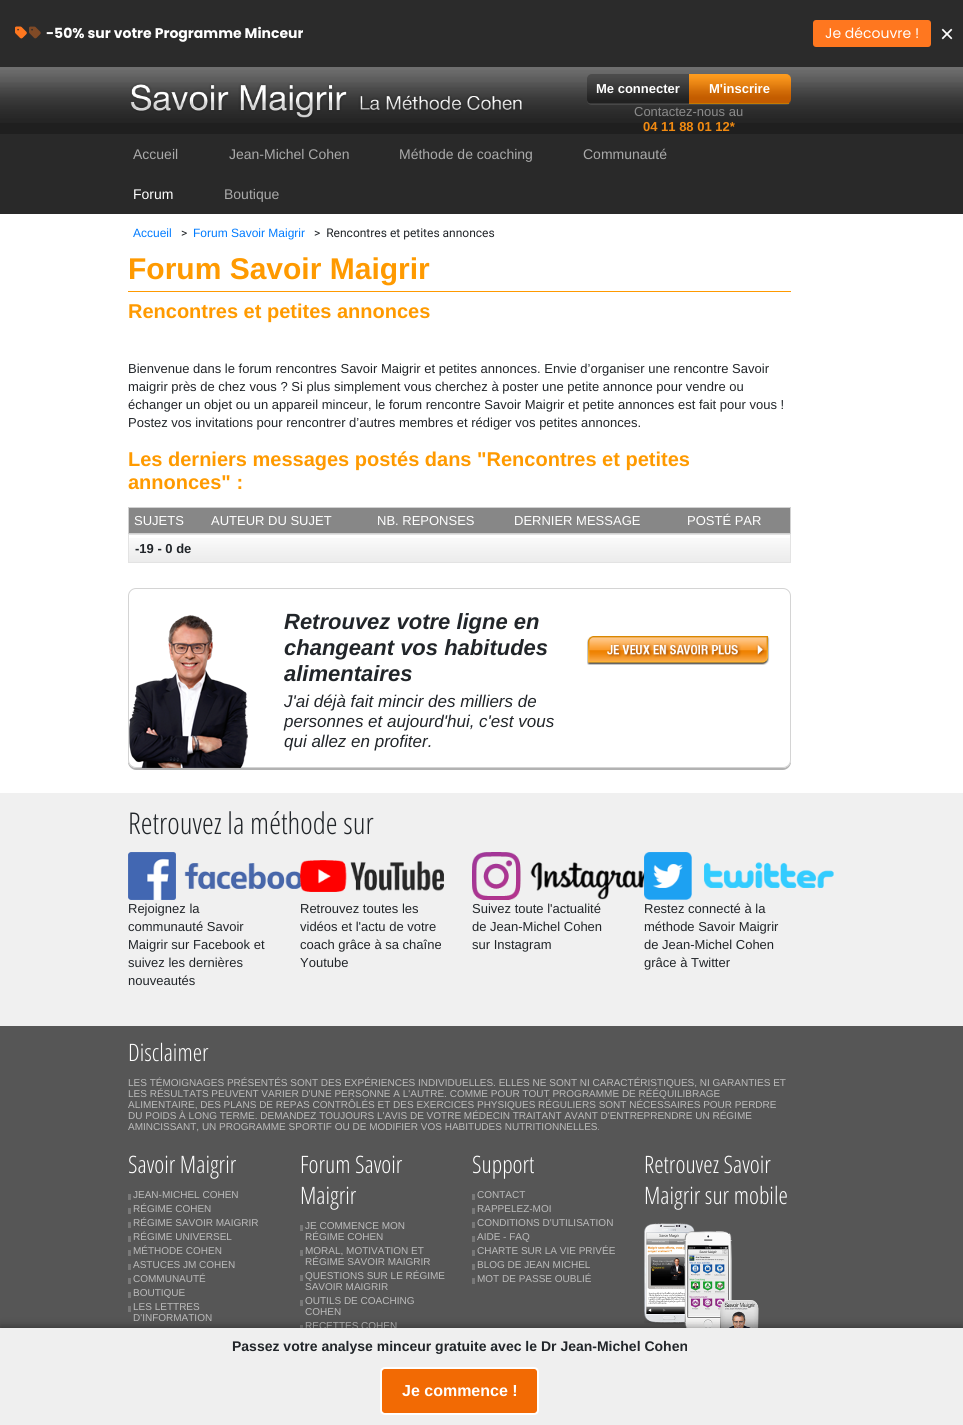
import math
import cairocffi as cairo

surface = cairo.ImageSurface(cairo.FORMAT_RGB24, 963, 1425)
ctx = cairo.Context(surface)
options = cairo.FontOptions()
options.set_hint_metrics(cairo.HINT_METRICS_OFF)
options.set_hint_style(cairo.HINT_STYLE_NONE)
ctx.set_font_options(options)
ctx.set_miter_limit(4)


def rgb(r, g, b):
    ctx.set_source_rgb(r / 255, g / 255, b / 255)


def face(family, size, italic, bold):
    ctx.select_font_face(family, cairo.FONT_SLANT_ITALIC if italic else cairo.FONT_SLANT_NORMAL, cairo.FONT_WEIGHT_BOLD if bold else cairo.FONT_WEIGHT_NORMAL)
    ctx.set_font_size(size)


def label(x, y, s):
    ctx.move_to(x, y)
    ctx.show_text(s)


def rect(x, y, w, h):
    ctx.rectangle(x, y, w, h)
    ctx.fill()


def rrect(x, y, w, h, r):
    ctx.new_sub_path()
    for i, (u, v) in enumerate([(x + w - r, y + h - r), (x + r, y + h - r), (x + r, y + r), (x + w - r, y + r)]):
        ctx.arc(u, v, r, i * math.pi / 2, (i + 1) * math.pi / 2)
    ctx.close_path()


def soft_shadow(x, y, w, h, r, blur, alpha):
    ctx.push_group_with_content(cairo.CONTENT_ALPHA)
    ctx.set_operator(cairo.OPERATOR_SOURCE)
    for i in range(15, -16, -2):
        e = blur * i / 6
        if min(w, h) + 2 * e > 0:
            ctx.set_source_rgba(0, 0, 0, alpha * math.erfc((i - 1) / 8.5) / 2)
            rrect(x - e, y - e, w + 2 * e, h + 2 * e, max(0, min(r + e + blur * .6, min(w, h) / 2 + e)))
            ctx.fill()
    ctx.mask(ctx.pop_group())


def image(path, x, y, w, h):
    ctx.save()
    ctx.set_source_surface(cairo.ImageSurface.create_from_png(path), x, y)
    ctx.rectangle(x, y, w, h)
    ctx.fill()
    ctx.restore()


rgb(255, 255, 255)
ctx.paint()
rgb(43, 43, 43)
rect(0, 0, 963, 67)
image('image0.png', 15, 26, 12, 13)
image('image1.png', 15, 26, 26, 13)
face('Poppins', 14, 0, 1)
rgb(255, 255, 255)
label(46, 38, '-50% sur votre Programme Minceur')
rgb(255, 119, 31)
rrect(813, 20, 118, 27, 3)
ctx.fill()
face('Poppins', 14, 0, 0)
rgb(255, 255, 255)
label(825, 38, 'Je découvre !')
face('Liberation Sans', 24, 0, 0)
label(940, 42, '×')
rgb(31, 31, 31)
rect(0, 123, 963, 11)
image('image2.png', 0, 67, 963, 56)
image('image3.png', 130, 83, 393, 35)
rgb(72, 72, 72)
ctx.new_path()
ctx.move_to(587, 99)
ctx.line_to(587, 100)
ctx.curve_to(587, 103, 589, 105, 592, 105)
ctx.line_to(689, 105)
ctx.line_to(689, 104)
ctx.line_to(592, 104)
ctx.curve_to(589, 104, 587, 102, 587, 99)
ctx.close_path()
ctx.fill()
image('image4.png', 587, 74, 102, 29)
rgb(57, 57, 57)
rect(590, 103, 99, 1)
face('Liberation Sans', 13, 0, 1)
rgb(255, 255, 255)
label(596, 93, 'Me connecter')
rgb(72, 72, 72)
ctx.new_path()
ctx.move_to(689, 104)
ctx.line_to(689, 105)
ctx.line_to(786, 105)
ctx.curve_to(789, 105, 791, 103, 791, 100)
ctx.line_to(791, 99)
ctx.curve_to(791, 102, 789, 104, 786, 104)
ctx.close_path()
ctx.fill()
image('image5.png', 689, 74, 102, 29)
rgb(199, 122, 0)
rect(689, 103, 100, 1)
rgb(255, 255, 255)
label(709, 93, 'M\'inscrire')
face('Liberation Sans', 13, 0, 0)
rgb(139, 139, 139)
label(634, 116, 'Contactez-nous au')
face('Liberation Sans', 13, 0, 1)
rgb(241, 138, 17)
label(643, 131, '04 11 88 01 12*')
rgb(41, 41, 41)
rect(0, 134, 963, 80)
face('Liberation Sans', 14, 0, 0)
rgb(170, 170, 170)
label(133, 159, 'Accueil')
label(229, 159, 'Jean-Michel Cohen')
label(399, 159, 'Méthode de coaching')
label(583, 159, 'Communauté')
rgb(255, 255, 255)
label(133, 199, 'Forum')
rgb(170, 170, 170)
label(224, 199, 'Boutique')
face('Liberation Sans', 12, 0, 0)
rgb(0, 123, 255)
label(133, 237, 'Accueil')
face('Roboto', 12, 0, 0)
rgb(33, 37, 41)
label(181, 237, '>')
face('Liberation Sans', 12, 0, 0)
rgb(0, 123, 255)
label(193, 237, 'Forum Savoir Maigrir')
face('Roboto', 12, 0, 0)
rgb(33, 37, 41)
label(314, 237, '>  Rencontres et petites annonces')
rgb(255, 154, 0)
rect(128, 291, 663, 1)
face('Liberation Sans', 30, 0, 1)
label(128, 279, 'Forum Savoir Maigrir')
face('Liberation Sans', 20, 0, 1)
label(128, 318, 'Rencontres et petites annonces')
face('Liberation Sans', 13, 0, 0)
rgb(33, 37, 41)
label(128, 373, 'Bienvenue dans le forum rencontres Savoir Maigrir et petites annonces. Envie d’organiser une rencontre Savoir')
label(128, 391, 'maigrir près de chez vous ? Si plus simplement vous cherchez à poster une petite annonce pour vendre ou')
label(128, 409, 'échanger un objet ou un appareil minceur, le forum rencontre Savoir Maigrir et petite annonces est fait pour vous !')
label(128, 427, 'Postez vos invitations pour rencontrer d’autres membres et rédiger vos petites annonces.')
face('Liberation Sans', 20, 0, 1)
rgb(255, 154, 0)
label(128, 466, 'Les derniers messages postés dans "Rencontres et petites')
label(128, 489, 'annonces" :')
rgb(209, 209, 209)
rect(128, 507, 663, 1)
rect(790, 507, 1, 27)
rect(128, 533, 663, 1)
rect(128, 507, 1, 27)
rgb(135, 135, 135)
rect(129, 508, 661, 25)
face('Liberation Sans', 13, 0, 0)
rgb(255, 255, 255)
label(134, 525, 'SUJETS')
label(211, 525, 'AUTEUR DU SUJET')
label(377, 525, 'NB. REPONSES')
label(514, 525, 'DERNIER MESSAGE')
label(687, 525, 'POSTÉ PAR')
image('image6.png', 129, 538, 661, 24)
ctx.rectangle(128.5, 534.5, 662, 28)
rgb(227, 227, 227)
ctx.set_line_width(1)
ctx.stroke()
face('Liberation Sans', 13, 0, 1)
rgb(33, 37, 41)
label(135, 553, '-19 - 0 de')
rgb(178, 178, 178)
ctx.new_path()
ctx.move_to(128, 760)
ctx.line_to(128, 762)
ctx.curve_to(128, 766, 132, 770, 136, 770)
ctx.line_to(783, 770)
ctx.curve_to(787, 770, 791, 766, 791, 762)
ctx.line_to(791, 760)
ctx.curve_to(791, 764, 787, 768, 783, 768)
ctx.line_to(136, 768)
ctx.curve_to(132, 768, 128, 764, 128, 760)
ctx.close_path()
ctx.fill()
rgb(255, 255, 255)
rrect(128.5, 588.5, 662, 179, 7.5)
ctx.fill_preserve()
rgb(212, 212, 212)
ctx.stroke()
image('image7.png', 129, 615, 119, 153)
face('Liberation Sans', 22, 1, 1)
rgb(33, 37, 41)
label(284, 629, 'Retrouvez votre ligne en')
label(284, 655, 'changeant vos habitudes')
label(284, 681, 'alimentaires')
face('Liberation Sans', 17, 1, 0)
label(284, 707, 'J\'ai déjà fait mincir des milliers de')
label(284, 727, 'personnes et aujourd\'hui, c\'est vous')
label(284, 747, 'qui allez en profiter.')
image('image8.png', 587, 636, 183, 29)
rgb(240, 240, 240)
rect(0, 793, 963, 233)
face('Open Sans Light', 30, 0, 0)
rgb(33, 37, 41)
label(128, 834, 'Retrouvez la méthode sur')
image('image9.png', 128, 852, 174, 48)
face('Liberation Sans', 13, 0, 0)
label(128, 913, 'Rejoignez la')
label(128, 931, 'communauté Savoir')
label(128, 949, 'Maigrir sur Facebook et')
label(128, 967, 'suivez les dernières')
label(128, 985, 'nouveautés')
image('image10.png', 300, 860, 144, 32)
label(300, 913, 'Retrouvez toutes les')
label(300, 931, 'vidéos et l\'actu de votre')
label(300, 949, 'coach grâce à sa chaîne')
label(300, 967, 'Youtube')
image('image11.png', 472, 852, 173, 48)
label(472, 913, 'Suivez toute l\'actualité')
label(472, 931, 'de Jean-Michel Cohen')
label(472, 949, 'sur Instagram')
image('image12.png', 644, 852, 190, 48)
label(644, 913, 'Restez connecté à la')
label(644, 931, 'méthode Savoir Maigrir')
label(644, 949, 'de Jean-Michel Cohen')
label(644, 967, 'grâce à Twitter')
rgb(86, 86, 86)
rect(0, 1026, 963, 302)
face('Open Sans Light', 24, 0, 0)
rgb(255, 255, 255)
label(128, 1061, 'Disclaimer')
face('Liberation Sans', 10, 0, 0)
rgb(188, 188, 188)
label(128, 1086, 'LES TÉMOIGNAGES PRÉSENTÉS SONT DES EXPÉRIENCES INDIVIDUELLES. ELLES NE SONT NI CARACTÉRISTIQUES, NI GARANTIES ET')
label(128, 1097, 'LES RÉSULTATS PEUVENT VARIER D\'UNE PERSONNE A L\'AUTRE. COMME POUR TOUT PROGRAMME DE RÉÉQUILIBRAGE')
label(128, 1108, 'ALIMENTAIRE, DES PLANS DE REPAS CONTRÔLÉS ET DES EXERCICES PHYSIQUES RÉGULIERS SONT NÉCESSAIRES POUR PERDRE')
label(128, 1119, 'DU POIDS À LONG TERME. DEMANDEZ TOUJOURS L\'AVIS DE VOTRE MÉDECIN TRAITANT AVANT D\'ENTREPRENDRE UN RÉGIME')
label(128, 1130, 'AMINCISSANT, UN PROGRAMME SPORTIF OU DE MODIFIER VOS HABITUDES NUTRITIONNELLES.')
face('Open Sans Light', 24, 0, 0)
rgb(255, 255, 255)
label(128, 1173, 'Savoir Maigrir')
rgb(121, 121, 121)
rect(128, 1194, 3, 6)
face('Liberation Sans', 10, 0, 0)
rgb(188, 188, 188)
label(133, 1198, 'JEAN-MICHEL COHEN')
rgb(121, 121, 121)
rect(128, 1208, 3, 6)
rgb(188, 188, 188)
label(133, 1212, 'RÉGIME COHEN')
rgb(121, 121, 121)
rect(128, 1222, 3, 6)
rgb(188, 188, 188)
label(133, 1226, 'RÉGIME SAVOIR MAIGRIR')
rgb(121, 121, 121)
rect(128, 1236, 3, 6)
rgb(188, 188, 188)
label(133, 1240, 'RÉGIME UNIVERSEL')
rgb(121, 121, 121)
rect(128, 1250, 3, 6)
rgb(188, 188, 188)
label(133, 1254, 'MÉTHODE COHEN')
rgb(121, 121, 121)
rect(128, 1264, 3, 6)
rgb(188, 188, 188)
label(133, 1268, 'ASTUCES JM COHEN')
rgb(121, 121, 121)
rect(128, 1278, 3, 6)
rgb(188, 188, 188)
label(133, 1282, 'COMMUNAUTÉ')
rgb(121, 121, 121)
rect(128, 1292, 3, 6)
rgb(188, 188, 188)
label(133, 1296, 'BOUTIQUE')
rgb(121, 121, 121)
rect(128, 1306, 3, 6)
rgb(188, 188, 188)
label(133, 1310, 'LES LETTRES')
label(133, 1321, 'D\'INFORMATION')
face('Open Sans Light', 24, 0, 0)
rgb(255, 255, 255)
label(300, 1173, 'Forum Savoir')
label(300, 1204, 'Maigrir')
rgb(121, 121, 121)
rect(300, 1225, 3, 6)
face('Liberation Sans', 10, 0, 0)
rgb(188, 188, 188)
label(305, 1229, 'JE COMMENCE MON')
label(305, 1240, 'RÉGIME COHEN')
rgb(121, 121, 121)
rect(300, 1250, 3, 6)
rgb(188, 188, 188)
label(305, 1254, 'MORAL, MOTIVATION ET')
label(305, 1265, 'RÉGIME SAVOIR MAIGRIR')
rgb(121, 121, 121)
rect(300, 1275, 3, 6)
rgb(188, 188, 188)
label(305, 1279, 'QUESTIONS SUR LE RÉGIME')
label(305, 1290, 'SAVOIR MAIGRIR')
rgb(121, 121, 121)
rect(300, 1300, 3, 6)
rgb(188, 188, 188)
label(305, 1304, 'OUTILS DE COACHING')
label(305, 1315, 'COHEN')
rgb(121, 121, 121)
rect(300, 1325, 3, 6)
rgb(188, 188, 188)
label(305, 1329, 'RECETTES COHEN')
face('Open Sans Light', 24, 0, 0)
rgb(255, 255, 255)
label(472, 1173, 'Support')
rgb(121, 121, 121)
rect(472, 1194, 3, 6)
face('Liberation Sans', 10, 0, 0)
rgb(188, 188, 188)
label(477, 1198, 'CONTACT')
rgb(121, 121, 121)
rect(472, 1208, 3, 6)
rgb(188, 188, 188)
label(477, 1212, 'RAPPELEZ-MOI')
rgb(121, 121, 121)
rect(472, 1222, 3, 6)
rgb(188, 188, 188)
label(477, 1226, 'CONDITIONS D\'UTILISATION')
rgb(121, 121, 121)
rect(472, 1236, 3, 6)
rgb(188, 188, 188)
label(477, 1240, 'AIDE - FAQ')
rgb(121, 121, 121)
rect(472, 1250, 3, 6)
rgb(188, 188, 188)
label(477, 1254, 'CHARTE SUR LA VIE PRIVÉE')
rgb(121, 121, 121)
rect(472, 1264, 3, 6)
rgb(188, 188, 188)
label(477, 1268, 'BLOG DE JEAN MICHEL')
rgb(121, 121, 121)
rect(472, 1278, 3, 6)
rgb(188, 188, 188)
label(477, 1282, 'MOT DE PASSE OUBLIÉ')
face('Open Sans Light', 24, 0, 0)
rgb(255, 255, 255)
label(644, 1173, 'Retrouvez Savoir')
label(644, 1204, 'Maigrir sur mobile')
image('image13.png', 644, 1223, 115, 105)
rgb(0, 0, 0)
soft_shadow(0, 1328, 963, 97, 0, 5, 0.5)
rgb(239, 239, 239)
rect(0, 1328, 963, 97)
face('Liberation Sans', 14, 0, 1)
rgb(33, 37, 41)
label(232, 1351, 'Passez votre analyse minceur gratuite avec le Dr Jean-Michel Cohen')
rgb(242, 106, 4)
rrect(381, 1368, 157, 46, 4)
ctx.fill_preserve()
rgb(255, 255, 255)
ctx.set_line_width(2)
ctx.stroke()
face('Liberation Sans', 16, 0, 1)
label(402, 1396, 'Je commence !')
surface.write_to_png('render.png')
